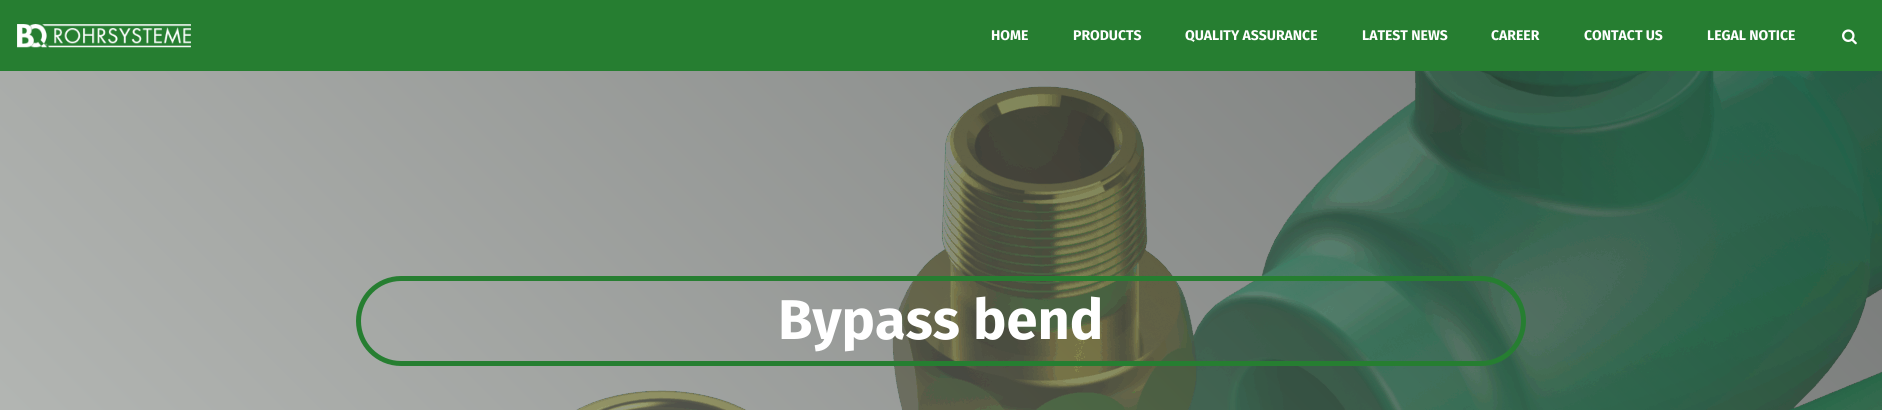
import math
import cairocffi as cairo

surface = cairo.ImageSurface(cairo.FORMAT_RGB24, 1882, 410)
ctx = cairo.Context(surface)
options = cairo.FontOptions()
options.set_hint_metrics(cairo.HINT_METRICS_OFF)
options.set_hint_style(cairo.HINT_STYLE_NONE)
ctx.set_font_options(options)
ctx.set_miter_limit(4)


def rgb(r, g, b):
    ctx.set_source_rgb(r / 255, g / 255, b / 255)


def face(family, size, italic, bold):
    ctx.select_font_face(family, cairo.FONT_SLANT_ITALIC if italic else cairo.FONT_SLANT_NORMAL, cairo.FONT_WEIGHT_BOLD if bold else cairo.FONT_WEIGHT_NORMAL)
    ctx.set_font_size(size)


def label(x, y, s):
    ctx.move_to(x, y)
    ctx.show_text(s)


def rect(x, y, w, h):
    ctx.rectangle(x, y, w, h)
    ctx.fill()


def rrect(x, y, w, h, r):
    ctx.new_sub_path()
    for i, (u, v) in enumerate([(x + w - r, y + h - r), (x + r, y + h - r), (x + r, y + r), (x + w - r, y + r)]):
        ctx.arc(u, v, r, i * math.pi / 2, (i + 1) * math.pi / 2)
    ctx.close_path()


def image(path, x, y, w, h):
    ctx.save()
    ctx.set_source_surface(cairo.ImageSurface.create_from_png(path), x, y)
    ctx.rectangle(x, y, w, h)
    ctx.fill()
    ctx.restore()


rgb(255, 255, 255)
ctx.paint()
rgb(38, 126, 49)
rect(0, 0, 1882, 71)
image('image0.png', 17, 24, 174, 24)
face('Fira Sans', 14, 0, 1)
rgb(255, 255, 255)
label(991, 40, 'HOME')
label(1073, 40, 'PRODUCTS')
label(1185, 40, 'QUALITY ASSURANCE')
label(1362, 40, 'LATEST NEWS')
label(1491, 40, 'CAREER')
label(1584, 40, 'CONTACT US')
label(1707, 40, 'LEGAL NOTICE')
image('image1.png', 1842, 29, 15, 16)
image('image2.png', 576, 71, 1306, 339)
gradient = cairo.LinearGradient(346, 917, 1537, -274)
gradient.add_color_stop_rgba(0, 0.565, 0.584, 0.565, 0.65)
gradient.add_color_stop_rgba(1, 0.173, 0.188, 0.18, 0.65)
ctx.set_source(gradient)
rect(0, 71, 1882, 339)
rrect(358.5, 278.5, 1165, 85, 42.5)
rgb(38, 126, 49)
ctx.set_line_width(5)
ctx.stroke()
face('Fira Sans', 56, 0, 1)
rgb(255, 255, 255)
label(778, 339, 'Bypass bend')
surface.write_to_png('render.png')
